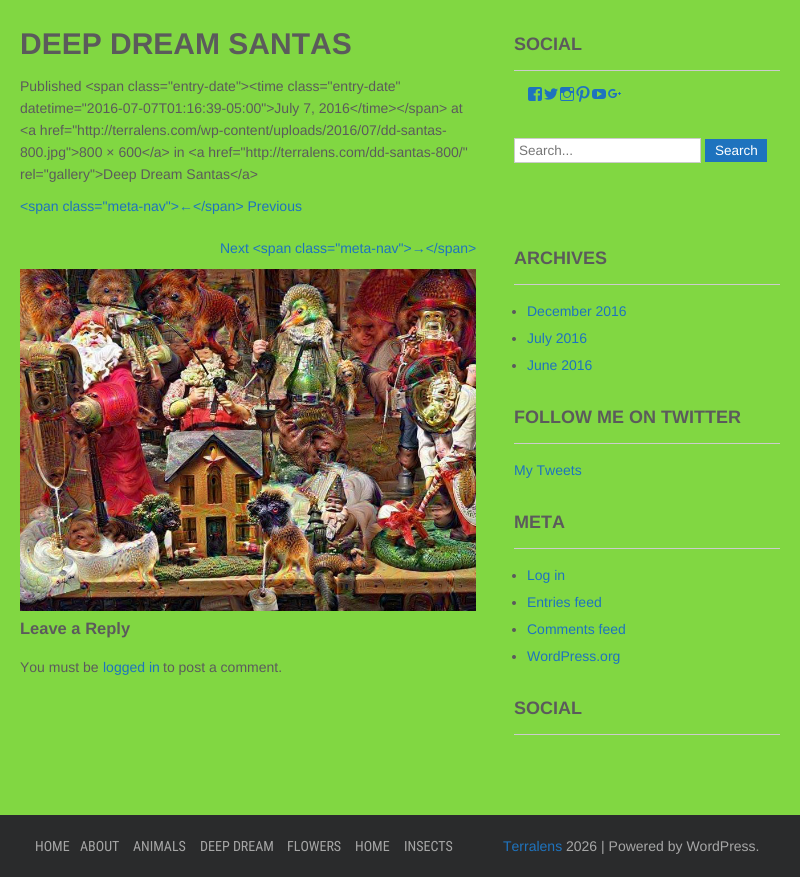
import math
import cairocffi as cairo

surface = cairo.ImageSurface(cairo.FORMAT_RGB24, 800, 877)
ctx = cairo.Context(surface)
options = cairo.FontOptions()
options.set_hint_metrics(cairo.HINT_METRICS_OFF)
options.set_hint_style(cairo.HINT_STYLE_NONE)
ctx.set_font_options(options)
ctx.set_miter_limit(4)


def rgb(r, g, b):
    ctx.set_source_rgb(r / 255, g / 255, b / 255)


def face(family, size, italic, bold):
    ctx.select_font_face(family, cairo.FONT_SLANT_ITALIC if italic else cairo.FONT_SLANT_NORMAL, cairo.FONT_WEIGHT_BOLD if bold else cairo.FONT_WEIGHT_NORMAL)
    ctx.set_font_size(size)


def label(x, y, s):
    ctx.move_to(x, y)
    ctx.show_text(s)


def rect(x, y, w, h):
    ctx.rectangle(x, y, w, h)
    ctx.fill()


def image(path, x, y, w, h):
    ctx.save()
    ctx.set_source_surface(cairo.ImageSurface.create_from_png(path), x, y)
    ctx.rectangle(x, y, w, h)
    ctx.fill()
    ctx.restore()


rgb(129, 215, 66)
ctx.paint()
face('Liberation Sans', 30, 0, 1)
rgb(91, 91, 91)
label(20, 54, 'DEEP DREAM SANTAS')
face('Liberation Sans', 14, 0, 0)
label(20, 91, 'Published <span class="entry-date"><time class="entry-date"')
label(20, 113, 'datetime="2016-07-07T01:16:39-05:00">July 7, 2016</time></span> at')
label(20, 135, '<a href="http://terralens.com/wp-content/uploads/2016/07/dd-santas-')
label(20, 157, '800.jpg">800 × 600</a> in <a href="http://terralens.com/dd-santas-800/"')
label(20, 179, 'rel="gallery">Deep Dream Santas</a>')
rgb(30, 115, 190)
label(20, 211, '<span class="meta-nav">←</span> Previous')
label(220, 253, 'Next <span class="meta-nav">→</span>')
image('image0.png', 20, 269, 456, 342)
face('Liberation Sans', 16.5, 0, 1)
rgb(91, 91, 91)
label(20, 634, 'Leave a Reply')
face('Liberation Sans', 14, 0, 0)
label(20, 672, 'You must be')
rgb(30, 115, 190)
label(103, 672, 'logged in')
rgb(91, 91, 91)
label(163, 672, 'to post a comment.')
rgb(204, 204, 204)
rect(514, 70, 266, 1)
face('Liberation Sans', 18, 0, 1)
rgb(91, 91, 91)
label(514, 50, 'SOCIAL')
image('image1.png', 528, 87, 14, 14)
image('image2.png', 544, 88, 14, 12)
image('image3.png', 560, 87, 14, 14)
image('image4.png', 576, 86, 14, 16)
image('image5.png', 592, 89, 14, 10)
image('image6.png', 608, 88, 13, 11)
rgb(255, 255, 255)
ctx.rectangle(514.5, 138.5, 186, 24)
ctx.fill_preserve()
rgb(204, 204, 204)
ctx.set_line_width(1)
ctx.stroke()
face('Liberation Sans', 13.5, 0, 0)
rgb(117, 117, 117)
label(519, 155, 'Search...')
rgb(30, 115, 190)
rect(705, 139, 62, 23)
rgb(255, 255, 255)
label(715, 155, 'Search')
rgb(204, 204, 204)
rect(514, 284, 266, 1)
face('Liberation Sans', 18, 0, 1)
rgb(91, 91, 91)
label(514, 264, 'ARCHIVES')
ctx.new_path()
ctx.arc(514, 312, 2, 0, 2 * math.pi)
ctx.fill()
face('Liberation Sans', 14, 0, 0)
rgb(30, 115, 190)
label(527, 316, 'December 2016')
rgb(91, 91, 91)
ctx.new_path()
ctx.arc(514, 339, 2, 0, 2 * math.pi)
ctx.fill()
rgb(30, 115, 190)
label(527, 343, 'July 2016')
rgb(91, 91, 91)
ctx.new_path()
ctx.arc(514, 366, 2, 0, 2 * math.pi)
ctx.fill()
rgb(30, 115, 190)
label(527, 370, 'June 2016')
rgb(204, 204, 204)
rect(514, 443, 266, 1)
face('Liberation Sans', 18, 0, 1)
rgb(91, 91, 91)
label(514, 423, 'FOLLOW ME ON TWITTER')
face('Liberation Sans', 14, 0, 0)
rgb(30, 115, 190)
label(514, 475, 'My Tweets')
rgb(204, 204, 204)
rect(514, 548, 266, 1)
face('Liberation Sans', 18, 0, 1)
rgb(91, 91, 91)
label(514, 528, 'META')
ctx.new_path()
ctx.arc(514, 576, 2, 0, 2 * math.pi)
ctx.fill()
face('Liberation Sans', 14, 0, 0)
rgb(30, 115, 190)
label(527, 580, 'Log in')
rgb(91, 91, 91)
ctx.new_path()
ctx.arc(514, 603, 2, 0, 2 * math.pi)
ctx.fill()
rgb(30, 115, 190)
label(527, 607, 'Entries feed')
rgb(91, 91, 91)
ctx.new_path()
ctx.arc(514, 630, 2, 0, 2 * math.pi)
ctx.fill()
rgb(30, 115, 190)
label(527, 634, 'Comments feed')
rgb(91, 91, 91)
ctx.new_path()
ctx.arc(514, 657, 2, 0, 2 * math.pi)
ctx.fill()
rgb(30, 115, 190)
label(527, 661, 'WordPress.org')
rgb(204, 204, 204)
rect(514, 734, 266, 1)
face('Liberation Sans', 18, 0, 1)
rgb(91, 91, 91)
label(514, 714, 'SOCIAL')
rgb(42, 43, 44)
rect(0, 815, 800, 62)
face('Roboto Condensed', 14, 0, 0)
rgb(166, 166, 166)
label(35, 851, 'HOME')
label(80, 851, 'ABOUT')
label(133, 851, 'ANIMALS')
label(200, 851, 'DEEP DREAM')
label(287, 851, 'FLOWERS')
label(355, 851, 'HOME')
label(404, 851, 'INSECTS')
face('Liberation Sans', 14, 0, 0)
rgb(30, 115, 190)
label(503, 851, 'Terralens')
rgb(166, 166, 166)
label(566, 851, '2026 | Powered by WordPress.')
surface.write_to_png('render.png')
